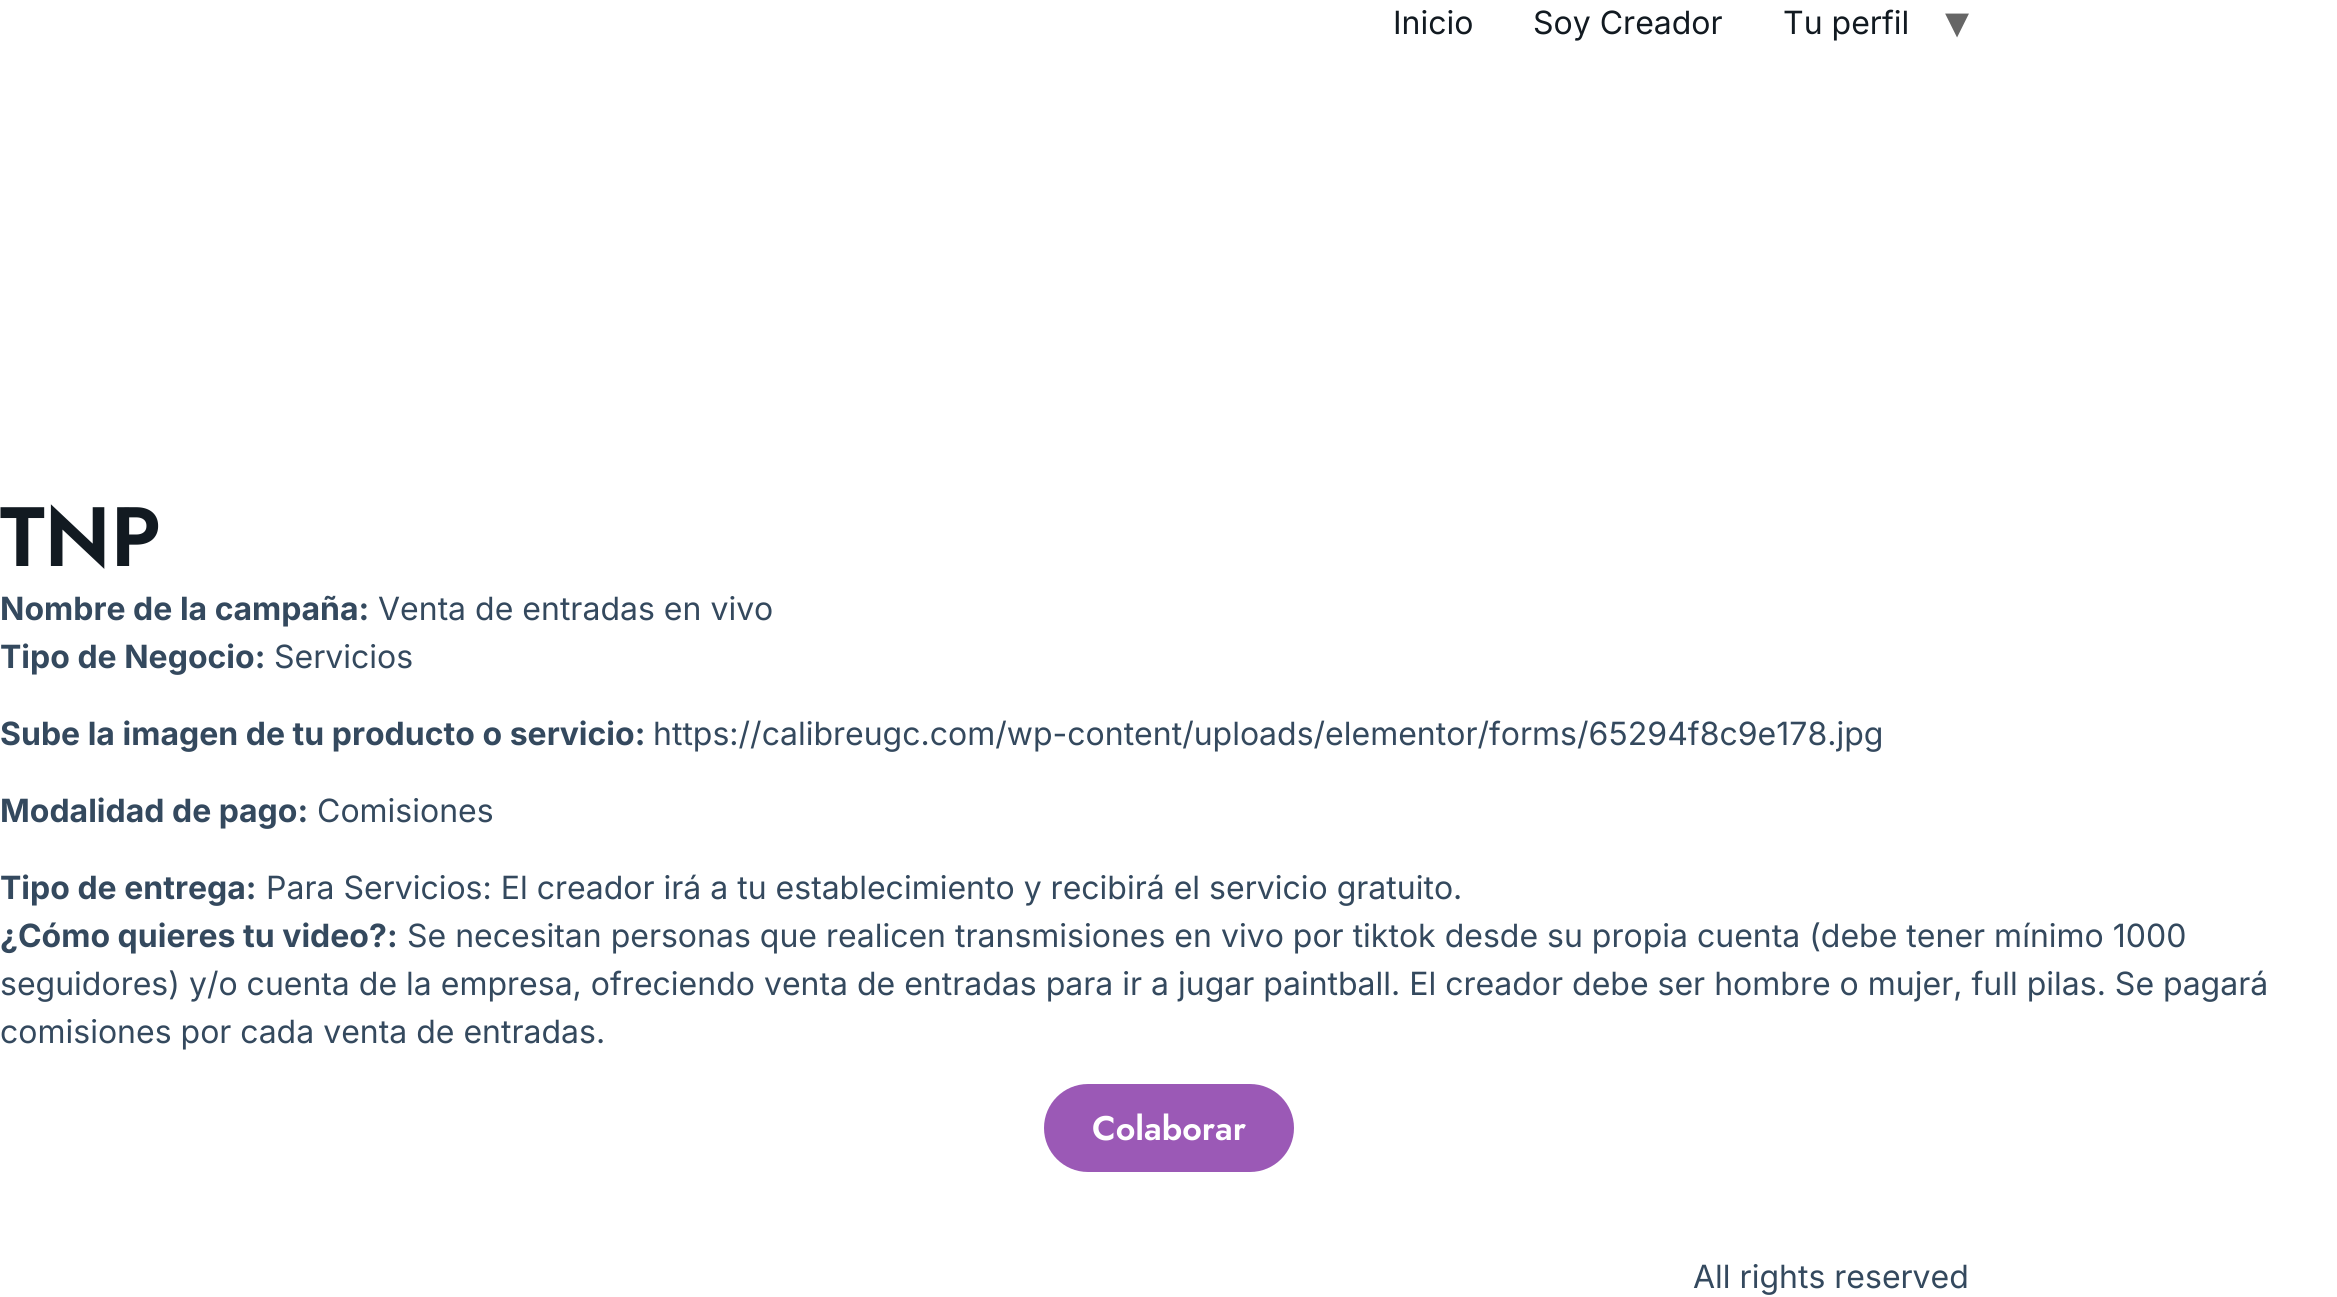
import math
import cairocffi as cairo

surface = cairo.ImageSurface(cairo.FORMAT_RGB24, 2337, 1297)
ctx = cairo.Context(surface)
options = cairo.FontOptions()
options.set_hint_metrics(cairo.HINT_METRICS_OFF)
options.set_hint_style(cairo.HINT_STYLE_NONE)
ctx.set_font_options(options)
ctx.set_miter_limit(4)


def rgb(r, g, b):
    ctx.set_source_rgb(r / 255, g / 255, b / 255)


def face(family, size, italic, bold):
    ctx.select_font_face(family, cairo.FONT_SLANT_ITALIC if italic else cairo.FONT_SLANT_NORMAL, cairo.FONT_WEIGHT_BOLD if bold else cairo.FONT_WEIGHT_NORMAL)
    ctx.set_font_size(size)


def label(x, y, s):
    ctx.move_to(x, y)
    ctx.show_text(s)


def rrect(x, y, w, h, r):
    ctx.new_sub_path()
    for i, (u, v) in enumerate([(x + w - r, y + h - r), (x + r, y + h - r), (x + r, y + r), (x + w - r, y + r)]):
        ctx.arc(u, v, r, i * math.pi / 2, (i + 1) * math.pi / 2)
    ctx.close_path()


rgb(255, 255, 255)
ctx.paint()
face('Inter', 32, 0, 0)
rgb(18, 26, 33)
label(1393, 34, 'Inicio')
label(1533, 34, 'Soy Creador')
label(1783, 34, 'Tu perfil')
face('DejaVu Sans', 48, 0, 0)
rgb(102, 102, 102)
label(1945, 38, '▾')
face('Jost SemiBold', 84, 0, 0)
rgb(18, 26, 33)
label(0, 566, 'TNP')
face('Inter', 32, 0, 1)
rgb(52, 73, 94)
label(0, 620, 'Nombre de la campaña:')
face('Inter', 32, 0, 0)
label(378, 620, 'Venta de entradas en vivo')
face('Inter', 32, 0, 1)
label(0, 668, 'Tipo de Negocio:')
face('Inter', 32, 0, 0)
label(274, 668, 'Servicios')
face('Inter', 32, 0, 1)
label(0, 745, 'Sube la imagen de tu producto o servicio:')
face('Inter', 32, 0, 0)
label(653, 745, 'https://calibreugc.com/wp-content/uploads/elementor/forms/65294f8c9e178.jpg')
face('Inter', 32, 0, 1)
label(0, 822, 'Modalidad de pago:')
face('Inter', 32, 0, 0)
label(317, 822, 'Comisiones')
face('Inter', 32, 0, 1)
label(0, 899, 'Tipo de entrega:')
face('Inter', 32, 0, 0)
label(266, 899, 'Para Servicios: El creador irá a tu establecimiento y recibirá el servicio gratuito.')
face('Inter', 32, 0, 1)
label(0, 947, '¿Cómo quieres tu video?:')
face('Inter', 32, 0, 0)
label(407, 947, 'Se necesitan personas que realicen transmisiones en vivo por tiktok desde su propia cuenta (debe tener mínimo 1000')
label(0, 995, 'seguidores) y/o cuenta de la empresa, ofreciendo venta de entradas para ir a jugar paintball. El creador debe ser hombre o mujer, full pilas. Se pagará')
label(0, 1043, 'comisiones por cada venta de entradas.')
rgb(155, 89, 182)
rrect(1044, 1084, 250, 88, 44)
ctx.fill()
face('Jost SemiBold', 34, 0, 0)
rgb(255, 255, 255)
label(1092, 1140, 'Colaborar')
face('Inter', 32, 0, 0)
rgb(52, 73, 94)
label(1693, 1288, 'All rights reserved')
surface.write_to_png('render.png')
